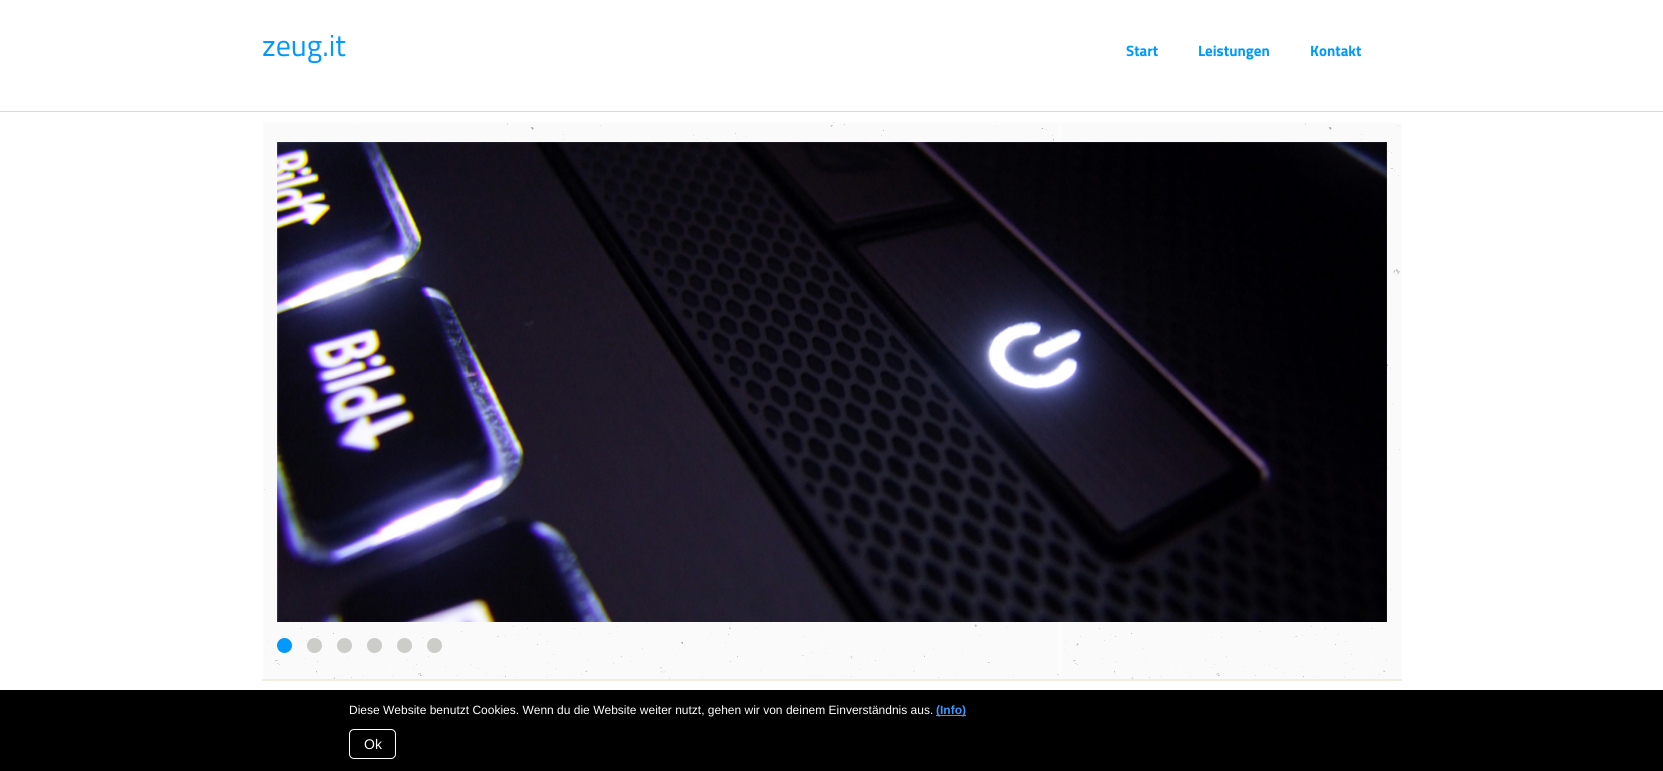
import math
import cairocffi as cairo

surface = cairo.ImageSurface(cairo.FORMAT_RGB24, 1663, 771)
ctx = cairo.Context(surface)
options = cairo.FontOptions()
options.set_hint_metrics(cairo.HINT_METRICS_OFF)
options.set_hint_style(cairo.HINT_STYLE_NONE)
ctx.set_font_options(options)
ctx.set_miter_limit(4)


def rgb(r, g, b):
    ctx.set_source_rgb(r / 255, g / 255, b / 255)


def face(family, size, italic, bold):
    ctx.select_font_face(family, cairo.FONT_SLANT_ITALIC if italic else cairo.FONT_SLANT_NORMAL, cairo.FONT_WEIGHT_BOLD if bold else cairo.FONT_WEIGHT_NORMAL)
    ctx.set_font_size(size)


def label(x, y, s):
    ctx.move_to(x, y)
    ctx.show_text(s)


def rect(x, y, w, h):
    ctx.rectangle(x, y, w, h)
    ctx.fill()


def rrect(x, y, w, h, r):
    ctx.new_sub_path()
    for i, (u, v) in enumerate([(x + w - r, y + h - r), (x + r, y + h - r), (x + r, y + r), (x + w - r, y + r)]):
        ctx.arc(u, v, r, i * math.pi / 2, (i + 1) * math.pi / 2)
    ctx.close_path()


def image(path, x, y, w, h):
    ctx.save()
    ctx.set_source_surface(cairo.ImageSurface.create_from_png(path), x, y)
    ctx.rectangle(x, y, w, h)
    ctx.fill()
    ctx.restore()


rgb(255, 255, 255)
ctx.paint()
rgb(217, 217, 217)
rect(0, 111, 1663, 1)
face('Titillium Web', 30, 0, 0)
rgb(0, 153, 255)
label(262, 56, 'zeug.it')
face('Titillium Web', 15, 0, 1)
label(1126, 56, 'Start')
label(1198, 56, 'Leistungen')
label(1310, 56, 'Kontakt')
image('image0.png', 263, 122, 1139, 557)
rgb(240, 238, 225)
rect(262, 679, 1140, 2)
image('image1.png', 277, 142, 1110, 480)
rgb(0, 153, 255)
ctx.arc(284.5, 645.5, 7.5, 0, 2 * math.pi)
ctx.fill()
rgb(204, 204, 201)
ctx.arc(314.5, 645.5, 7.5, 0, 2 * math.pi)
ctx.fill()
ctx.arc(344.5, 645.5, 7.5, 0, 2 * math.pi)
ctx.fill()
ctx.arc(374.5, 645.5, 7.5, 0, 2 * math.pi)
ctx.fill()
ctx.arc(404.5, 645.5, 7.5, 0, 2 * math.pi)
ctx.fill()
ctx.arc(434.5, 645.5, 7.5, 0, 2 * math.pi)
ctx.fill()
rgb(0, 0, 0)
rect(0, 690, 1663, 81)
face('Liberation Sans', 12, 0, 0)
rgb(255, 255, 255)
label(349, 714, 'Diese Website benutzt Cookies. Wenn du die Website weiter nutzt, gehen wir von deinem Einverständnis aus.')
rgb(58, 153, 254)
rect(936, 715, 30, 1)
face('Liberation Sans', 12, 0, 1)
label(936, 714, '(Info)')
rrect(349.5, 729.5, 46, 29, 4.5)
rgb(255, 255, 255)
ctx.set_line_width(1)
ctx.stroke()
face('Liberation Sans', 14, 0, 0)
label(364, 749, 'Ok')
surface.write_to_png('render.png')
